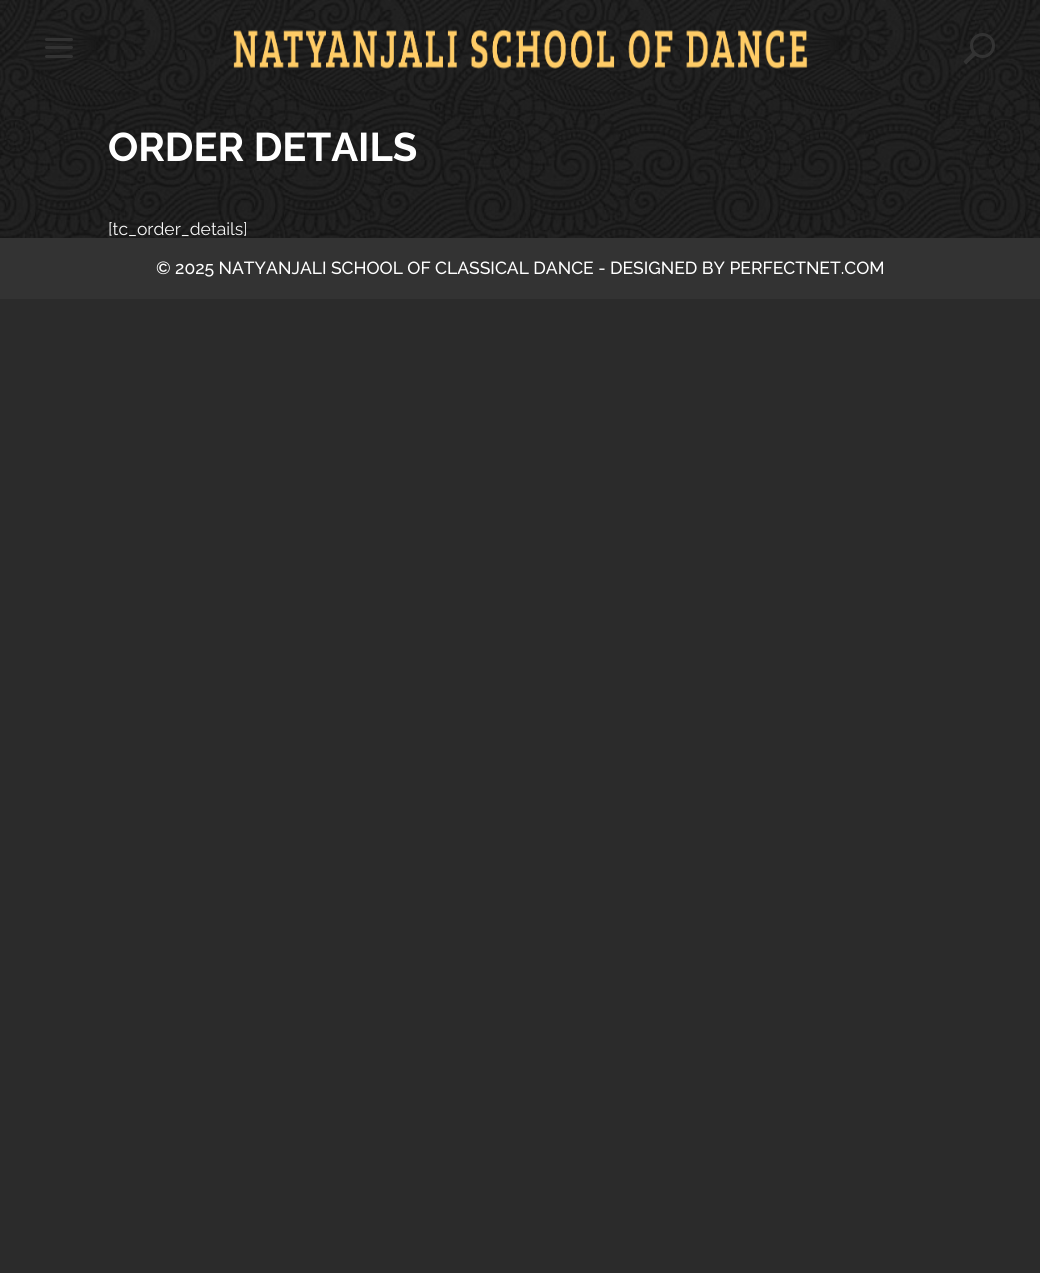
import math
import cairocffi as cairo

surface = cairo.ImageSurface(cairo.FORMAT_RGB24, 1040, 1273)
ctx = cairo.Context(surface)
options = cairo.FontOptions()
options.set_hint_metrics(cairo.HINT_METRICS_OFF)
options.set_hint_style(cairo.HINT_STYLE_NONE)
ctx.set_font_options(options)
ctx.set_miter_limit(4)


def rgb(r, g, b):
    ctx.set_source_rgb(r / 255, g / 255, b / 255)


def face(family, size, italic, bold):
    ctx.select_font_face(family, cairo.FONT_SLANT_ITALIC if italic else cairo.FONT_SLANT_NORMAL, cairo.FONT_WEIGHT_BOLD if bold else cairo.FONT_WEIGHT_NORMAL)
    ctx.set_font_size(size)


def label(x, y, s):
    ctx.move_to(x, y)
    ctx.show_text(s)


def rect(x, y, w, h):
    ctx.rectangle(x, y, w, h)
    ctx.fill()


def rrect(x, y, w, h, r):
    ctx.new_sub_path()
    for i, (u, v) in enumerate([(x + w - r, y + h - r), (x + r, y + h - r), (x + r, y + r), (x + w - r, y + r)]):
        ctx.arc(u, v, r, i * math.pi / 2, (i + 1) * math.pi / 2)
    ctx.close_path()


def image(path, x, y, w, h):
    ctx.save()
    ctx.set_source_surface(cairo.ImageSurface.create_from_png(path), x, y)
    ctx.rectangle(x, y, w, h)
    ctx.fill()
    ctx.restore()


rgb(43, 43, 43)
ctx.paint()
image('image0.png', 0, 95, 1040, 143)
image('image1.png', 0, 0, 1040, 95)
rgb(51, 51, 51)
rrect(45, 46, 28, 3, 1.5)
ctx.fill()
rrect(45, 38, 28, 3, 1.5)
ctx.fill()
rrect(45, 55, 28, 3, 1.5)
ctx.fill()
image('image2.png', 233, 29, 575, 40)
ctx.arc(982.5, 45.5, 11, 0, 2 * math.pi)
ctx.set_line_width(3)
ctx.stroke()
ctx.new_path()
ctx.move_to(963.5, 61.5)
ctx.line_to(974, 51)
ctx.line_to(977, 54)
ctx.line_to(966, 64.5)
ctx.close_path()
ctx.fill()
face('Raleway', 40, 0, 1)
rgb(255, 255, 255)
label(108, 161, 'ORDER DETAILS')
face('Raleway', 17.5, 0, 0)
rgb(247, 247, 247)
label(108, 235, '[tc_order_details]')
rgb(51, 51, 51)
rect(0, 238, 1040, 61)
face('Raleway Medium', 17.5, 0, 0)
rgb(255, 255, 255)
label(156, 274, '© 2025 NATYANJALI SCHOOL OF CLASSICAL DANCE - DESIGNED BY PERFECTNET.COM')
surface.write_to_png('render.png')
